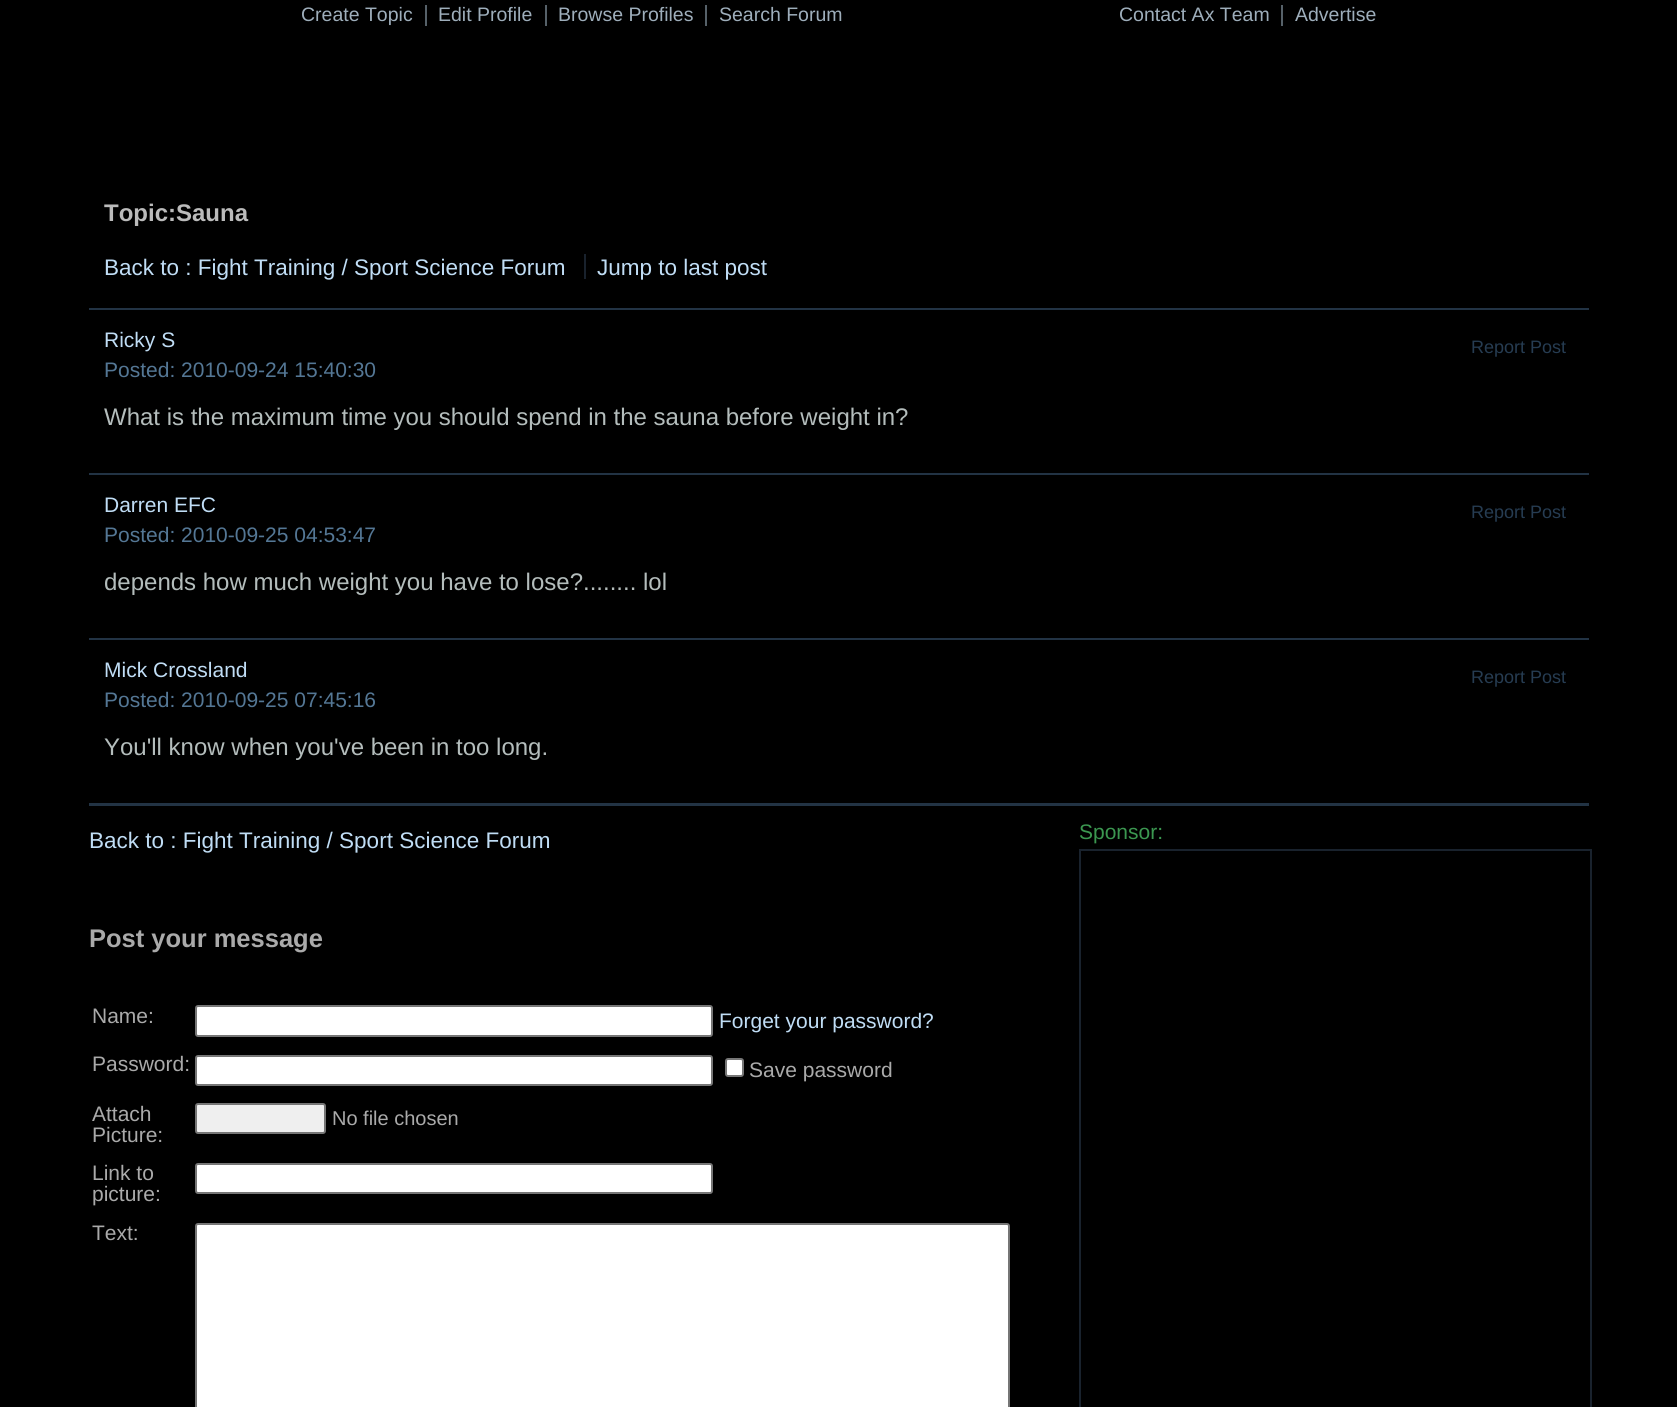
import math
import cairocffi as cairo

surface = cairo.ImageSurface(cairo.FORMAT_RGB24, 1677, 1407)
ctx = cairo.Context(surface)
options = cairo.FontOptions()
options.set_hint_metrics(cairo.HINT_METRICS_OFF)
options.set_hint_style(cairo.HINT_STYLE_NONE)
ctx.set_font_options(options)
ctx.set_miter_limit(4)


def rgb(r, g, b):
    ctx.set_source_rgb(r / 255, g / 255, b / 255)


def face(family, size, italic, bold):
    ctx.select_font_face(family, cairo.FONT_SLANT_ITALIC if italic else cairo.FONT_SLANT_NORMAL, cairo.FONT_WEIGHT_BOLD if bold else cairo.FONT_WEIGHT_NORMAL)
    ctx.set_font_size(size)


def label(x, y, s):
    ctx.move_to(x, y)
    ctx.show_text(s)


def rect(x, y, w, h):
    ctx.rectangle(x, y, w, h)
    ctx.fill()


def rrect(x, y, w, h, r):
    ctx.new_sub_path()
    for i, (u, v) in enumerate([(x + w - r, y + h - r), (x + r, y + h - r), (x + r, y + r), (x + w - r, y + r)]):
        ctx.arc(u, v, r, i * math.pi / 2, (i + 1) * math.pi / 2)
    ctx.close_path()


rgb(0, 0, 0)
ctx.paint()
face('Liberation Sans', 19.5, 0, 0)
rgb(158, 174, 187)
label(301, 21, 'Create Topic')
rgb(86, 97, 105)
rect(425, 5, 2, 21)
rgb(158, 174, 187)
label(438, 21, 'Edit Profile')
rgb(86, 97, 105)
rect(545, 5, 2, 21)
rgb(158, 174, 187)
label(558, 21, 'Browse Profiles')
rgb(86, 97, 105)
rect(705, 5, 2, 21)
rgb(158, 174, 187)
label(719, 21, 'Search Forum')
label(1119, 21, 'Contact Ax Team')
rgb(86, 97, 105)
rect(1281, 5, 2, 21)
rgb(158, 174, 187)
label(1295, 21, 'Advertise')
face('Liberation Sans', 24, 0, 1)
rgb(187, 187, 187)
label(104, 221, 'Topic:Sauna')
face('Liberation Sans', 22.5, 0, 0)
rgb(192, 221, 245)
label(104, 275, 'Back to : Fight Training / Sport Science Forum')
label(597, 275, 'Jump to last post')
rgb(25, 34, 45)
rect(584, 254, 2, 25)
rgb(34, 51, 68)
rect(89, 308, 1500, 2)
rect(89, 803, 1500, 3)
rect(89, 473, 1500, 2)
face('Liberation Sans', 21, 0, 0)
rgb(192, 221, 245)
label(104, 347, 'Ricky S')
face('Liberation Sans', 18, 0, 0)
rgb(38, 60, 82)
label(1471, 353, 'Report Post')
face('Liberation Sans', 21, 0, 0)
rgb(84, 119, 149)
label(104, 377, 'Posted: 2010-09-24 15:40:30')
face('Liberation Sans', 24, 0, 0)
rgb(180, 189, 188)
label(104, 425, 'What is the maximum time you should spend in the sauna before weight in?')
rgb(34, 51, 68)
rect(89, 638, 1500, 2)
face('Liberation Sans', 21, 0, 0)
rgb(192, 221, 245)
label(104, 512, 'Darren EFC')
face('Liberation Sans', 18, 0, 0)
rgb(38, 60, 82)
label(1471, 518, 'Report Post')
face('Liberation Sans', 21, 0, 0)
rgb(84, 119, 149)
label(104, 542, 'Posted: 2010-09-25 04:53:47')
face('Liberation Sans', 24, 0, 0)
rgb(180, 189, 188)
label(104, 590, 'depends how much weight you have to lose?........ lol')
face('Liberation Sans', 21, 0, 0)
rgb(192, 221, 245)
label(104, 677, 'Mick Crossland')
face('Liberation Sans', 18, 0, 0)
rgb(38, 60, 82)
label(1471, 683, 'Report Post')
face('Liberation Sans', 21, 0, 0)
rgb(84, 119, 149)
label(104, 707, 'Posted: 2010-09-25 07:45:16')
face('Liberation Sans', 24, 0, 0)
rgb(180, 189, 188)
label(104, 755, 'You\'ll know when you\'ve been in too long.')
face('Liberation Sans', 22.5, 0, 0)
rgb(192, 221, 245)
label(89, 848, 'Back to : Fight Training / Sport Science Forum')
face('Liberation Sans', 21, 0, 0)
rgb(59, 151, 80)
label(1079, 839, 'Sponsor:')
ctx.rectangle(1080, 850, 511, 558)
rgb(25, 34, 45)
ctx.stroke()
face('Liberation Sans', 25.5, 0, 1)
rgb(170, 170, 170)
label(89, 947, 'Post your message')
face('Liberation Sans', 21, 0, 0)
label(92, 1023, 'Name:')
rgb(255, 255, 255)
rrect(196, 1006, 516, 30, 2)
ctx.fill_preserve()
rgb(118, 118, 118)
ctx.stroke()
rgb(192, 221, 245)
label(719, 1028, 'Forget your password?')
rgb(170, 170, 170)
label(92, 1071, 'Password:')
rgb(255, 255, 255)
rrect(196, 1056, 516, 29, 2)
ctx.fill_preserve()
rgb(118, 118, 118)
ctx.stroke()
rgb(255, 255, 255)
rrect(726, 1059, 17, 17, 2)
ctx.fill_preserve()
rgb(118, 118, 118)
ctx.stroke()
rgb(170, 170, 170)
label(749, 1077, 'Save password')
label(92, 1121, 'Attach')
label(92, 1142, 'Picture:')
rgb(239, 239, 239)
rrect(196, 1104, 129, 29, 2)
ctx.fill_preserve()
rgb(118, 118, 118)
ctx.stroke()
face('Liberation Sans', 20, 0, 0)
rgb(170, 170, 170)
label(332, 1125, 'No file chosen')
face('Liberation Sans', 21, 0, 0)
label(92, 1180, 'Link to')
label(92, 1201, 'picture:')
rgb(255, 255, 255)
rrect(196, 1164, 516, 29, 2)
ctx.fill_preserve()
rgb(118, 118, 118)
ctx.stroke()
rgb(170, 170, 170)
label(92, 1240, 'Text:')
rgb(255, 255, 255)
rrect(196, 1224, 813, 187, 2)
ctx.fill_preserve()
rgb(118, 118, 118)
ctx.stroke()
surface.write_to_png('render.png')
